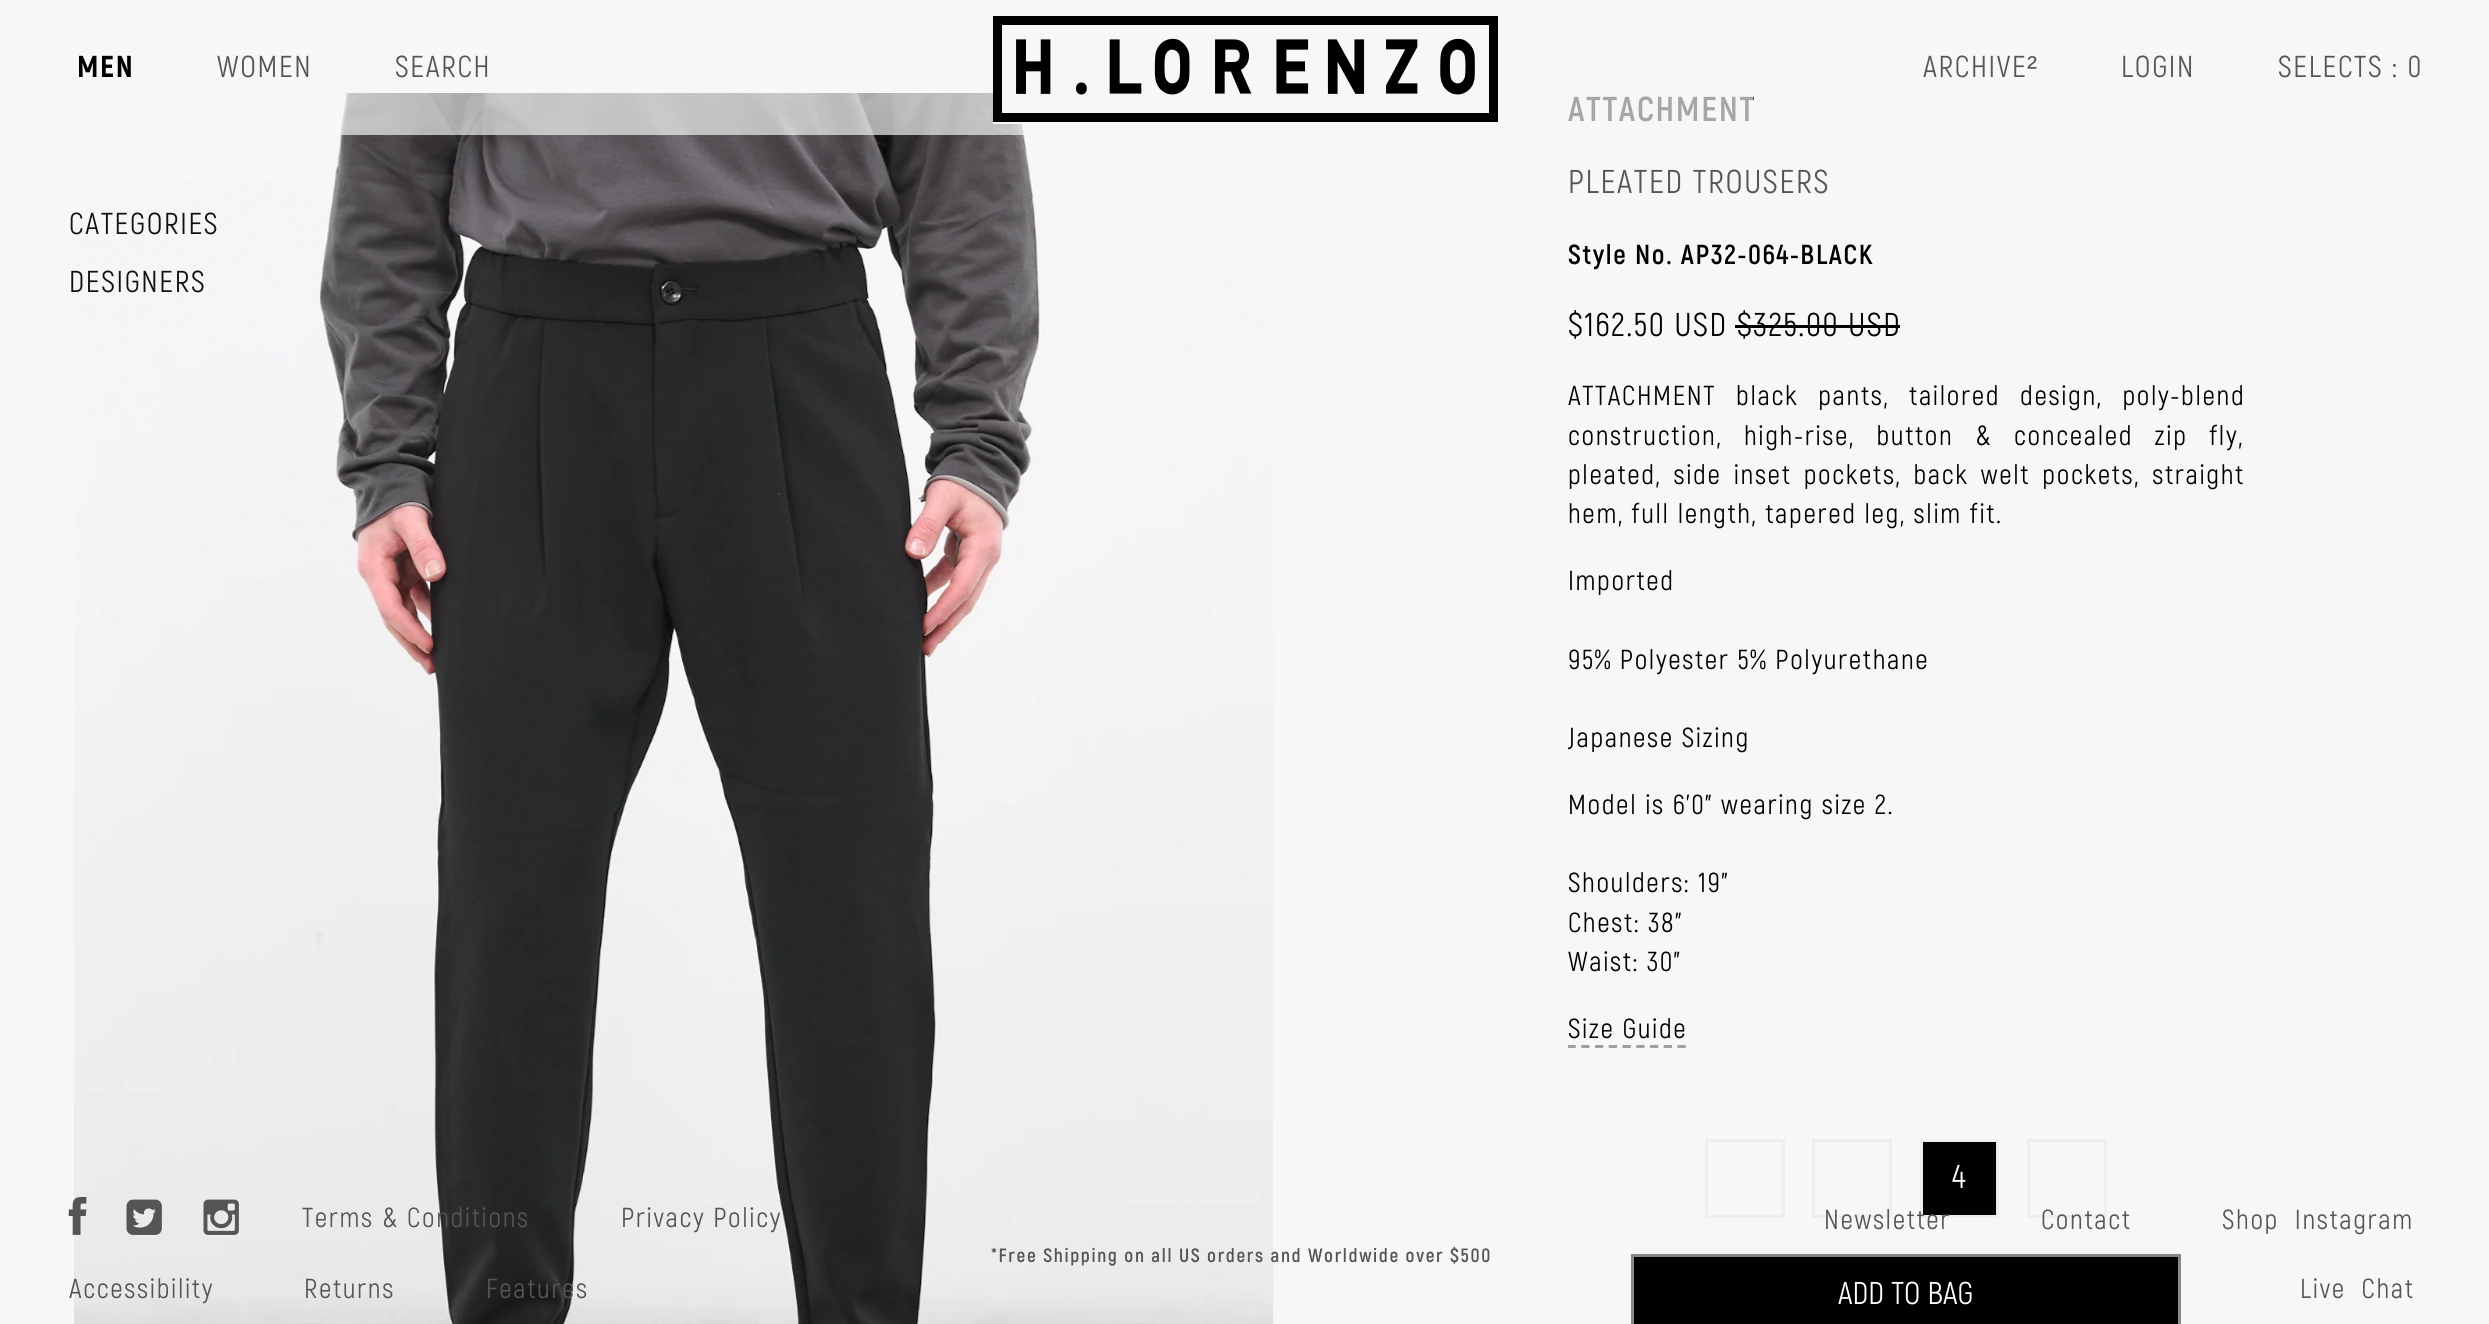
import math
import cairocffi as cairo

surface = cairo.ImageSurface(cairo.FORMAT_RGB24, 2489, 1324)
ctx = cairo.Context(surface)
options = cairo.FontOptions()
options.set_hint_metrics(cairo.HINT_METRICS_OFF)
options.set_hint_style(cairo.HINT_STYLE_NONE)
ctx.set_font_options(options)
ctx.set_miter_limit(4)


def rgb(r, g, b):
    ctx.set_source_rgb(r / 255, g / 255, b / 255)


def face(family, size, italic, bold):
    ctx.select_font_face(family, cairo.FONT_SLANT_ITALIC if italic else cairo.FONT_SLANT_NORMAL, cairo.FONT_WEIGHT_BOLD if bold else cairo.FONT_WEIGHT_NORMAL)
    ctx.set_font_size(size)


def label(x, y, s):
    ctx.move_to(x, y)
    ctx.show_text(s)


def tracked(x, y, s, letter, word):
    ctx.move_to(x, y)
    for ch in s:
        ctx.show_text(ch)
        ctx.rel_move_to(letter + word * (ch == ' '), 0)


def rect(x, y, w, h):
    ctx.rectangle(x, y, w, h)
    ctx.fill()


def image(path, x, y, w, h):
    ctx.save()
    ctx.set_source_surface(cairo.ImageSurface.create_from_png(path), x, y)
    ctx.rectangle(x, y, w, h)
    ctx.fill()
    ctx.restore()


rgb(247, 247, 247)
ctx.paint()
image('image1.png', 74, 93, 1200, 1231)
face('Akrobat', 34.5, 0, 1)
rgb(0, 0, 0)
tracked(1568, 121, 'ATTACHMENT', 1.65, 0)
ctx.set_source_rgba(0.969, 0.969, 0.969, 0.67)
rect(74, 93, 1679, 42)
rgb(247, 247, 247)
rect(993, 93, 30, 31)
image('image0.png', 993, 16, 505, 106)
face('Akrobat ExtraBold', 30.25, 0, 0)
rgb(0, 0, 0)
tracked(77, 77, 'MEN', 1.65, 0)
face('Akrobat', 30.25, 0, 0)
rgb(85, 85, 85)
tracked(217, 77, 'WOMEN', 1.65, 0)
tracked(395, 77, 'SEARCH', 1.65, 0)
tracked(1923, 77, 'ARCHIVE', 1.65, 0)
face('Liberation Sans', 30.25, 0, 0)
tracked(2027, 77, '²', 1.65, 0)
face('Akrobat', 30.25, 0, 0)
tracked(2121, 77, 'LOGIN', 1.65, 0)
tracked(2278, 77, 'SELECTS : 0', 1.65, 0)
rgb(17, 17, 17)
tracked(69, 234, 'CATEGORIES', 1.65, 0)
tracked(69, 292, 'DESIGNERS', 1.65, 0)
face('Akrobat', 33, 0, 0)
rgb(85, 85, 85)
tracked(1568, 193, 'PLEATED TROUSERS', 1.65, 0)
face('Akrobat', 27.5, 0, 1)
rgb(0, 0, 0)
tracked(1568, 264, 'Style No. AP32-064-BLACK', 1.65, 0)
face('Akrobat', 33, 0, 0)
tracked(1568, 336, '$162.50 USD $325.00 USD', 1.65, 0)
rect(1735, 325, 165, 3)
face('Akrobat', 27.5, 0, 0)
tracked(1568, 405, 'ATTACHMENT black pants, tailored design, poly-blend', 1.65, 12)
tracked(1568, 445, 'construction, high-rise, button & concealed zip fly,', 1.65, 13.75)
tracked(1568, 484, 'pleated, side inset pockets, back welt pockets, straight', 1.65, 4.25)
tracked(1568, 523, 'hem, full length, tapered leg, slim fit.', 1.65, 0)
tracked(1568, 590, 'Imported', 1.65, 0)
tracked(1568, 669, '95% Polyester 5% Polyurethane', 1.65, 0)
ctx.save()
ctx.rectangle(1568, 377, 676, 674)
ctx.clip()
tracked(1568, 747, 'Japanese Sizing', 1.65, 0)
ctx.restore()
tracked(1568, 814, 'Model is 6’0” wearing size 2.', 1.65, 0)
tracked(1568, 892, 'Shoulders: 19"', 1.65, 0)
tracked(1568, 932, 'Chest: 38”', 1.65, 0)
tracked(1568, 971, 'Waist: 30”', 1.65, 0)
tracked(1568, 1038, 'Size Guide', 1.65, 0)
ctx.save()
ctx.rectangle(1568, 377, 676, 674)
ctx.clip()
ctx.new_path()
ctx.move_to(1567.5, 1046.5)
ctx.line_to(1686, 1046.5)
rgb(153, 153, 153)
ctx.set_line_width(2.8)
ctx.set_dash([8.25, 5.5])
ctx.stroke()
ctx.restore()
ctx.rectangle(1706.5, 1140.5, 77, 76)
rgb(238, 238, 238)
ctx.set_line_width(3)
ctx.stroke()
ctx.rectangle(1813.5, 1140.5, 77, 76)
ctx.stroke()
rgb(0, 0, 0)
ctx.rectangle(1921.5, 1140.5, 76, 76)
ctx.fill_preserve()
rgb(238, 238, 238)
ctx.stroke()
face('Akrobat', 33, 0, 0)
rgb(255, 255, 255)
tracked(1952, 1188, '4', 1.65, 0)
ctx.rectangle(2028.5, 1140.5, 77, 76)
rgb(238, 238, 238)
ctx.stroke()
rgb(0, 0, 0)
ctx.rectangle(1632.5, 1255.5, 547, 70)
ctx.fill_preserve()
rgb(136, 136, 136)
ctx.stroke()
face('Akrobat', 31.5, 0, 0)
rgb(255, 255, 255)
label(1838, 1304, 'ADD TO BAG')
image('image2.png', 68, 1197, 19, 38)
image('image3.png', 126, 1199, 36, 36)
image('image4.png', 203, 1199, 36, 36)
face('Akrobat', 27.5, 0, 0)
rgb(85, 85, 85)
tracked(302, 1227, 'Terms & Conditions', 1.65, 0)
tracked(621, 1227, 'Privacy Policy', 1.65, 0)
tracked(69, 1298, 'Accessibility', 1.65, 0)
tracked(304, 1298, 'Returns', 1.65, 0)
tracked(486, 1298, 'Features', 1.65, 0)
face('Akrobat', 19.25, 0, 1)
tracked(991, 1262, '*Free Shipping on all US orders and Worldwide over $500', 1.65, 0)
face('Akrobat', 27.5, 0, 0)
tracked(1824, 1229, 'Newsletter', 1.65, 0)
tracked(2041, 1229, 'Contact', 1.65, 0)
tracked(2222, 1229, 'Shop  Instagram', 1.65, 0)
tracked(2300, 1298, 'Live  Chat', 1.65, 0)
surface.write_to_png('render.png')
